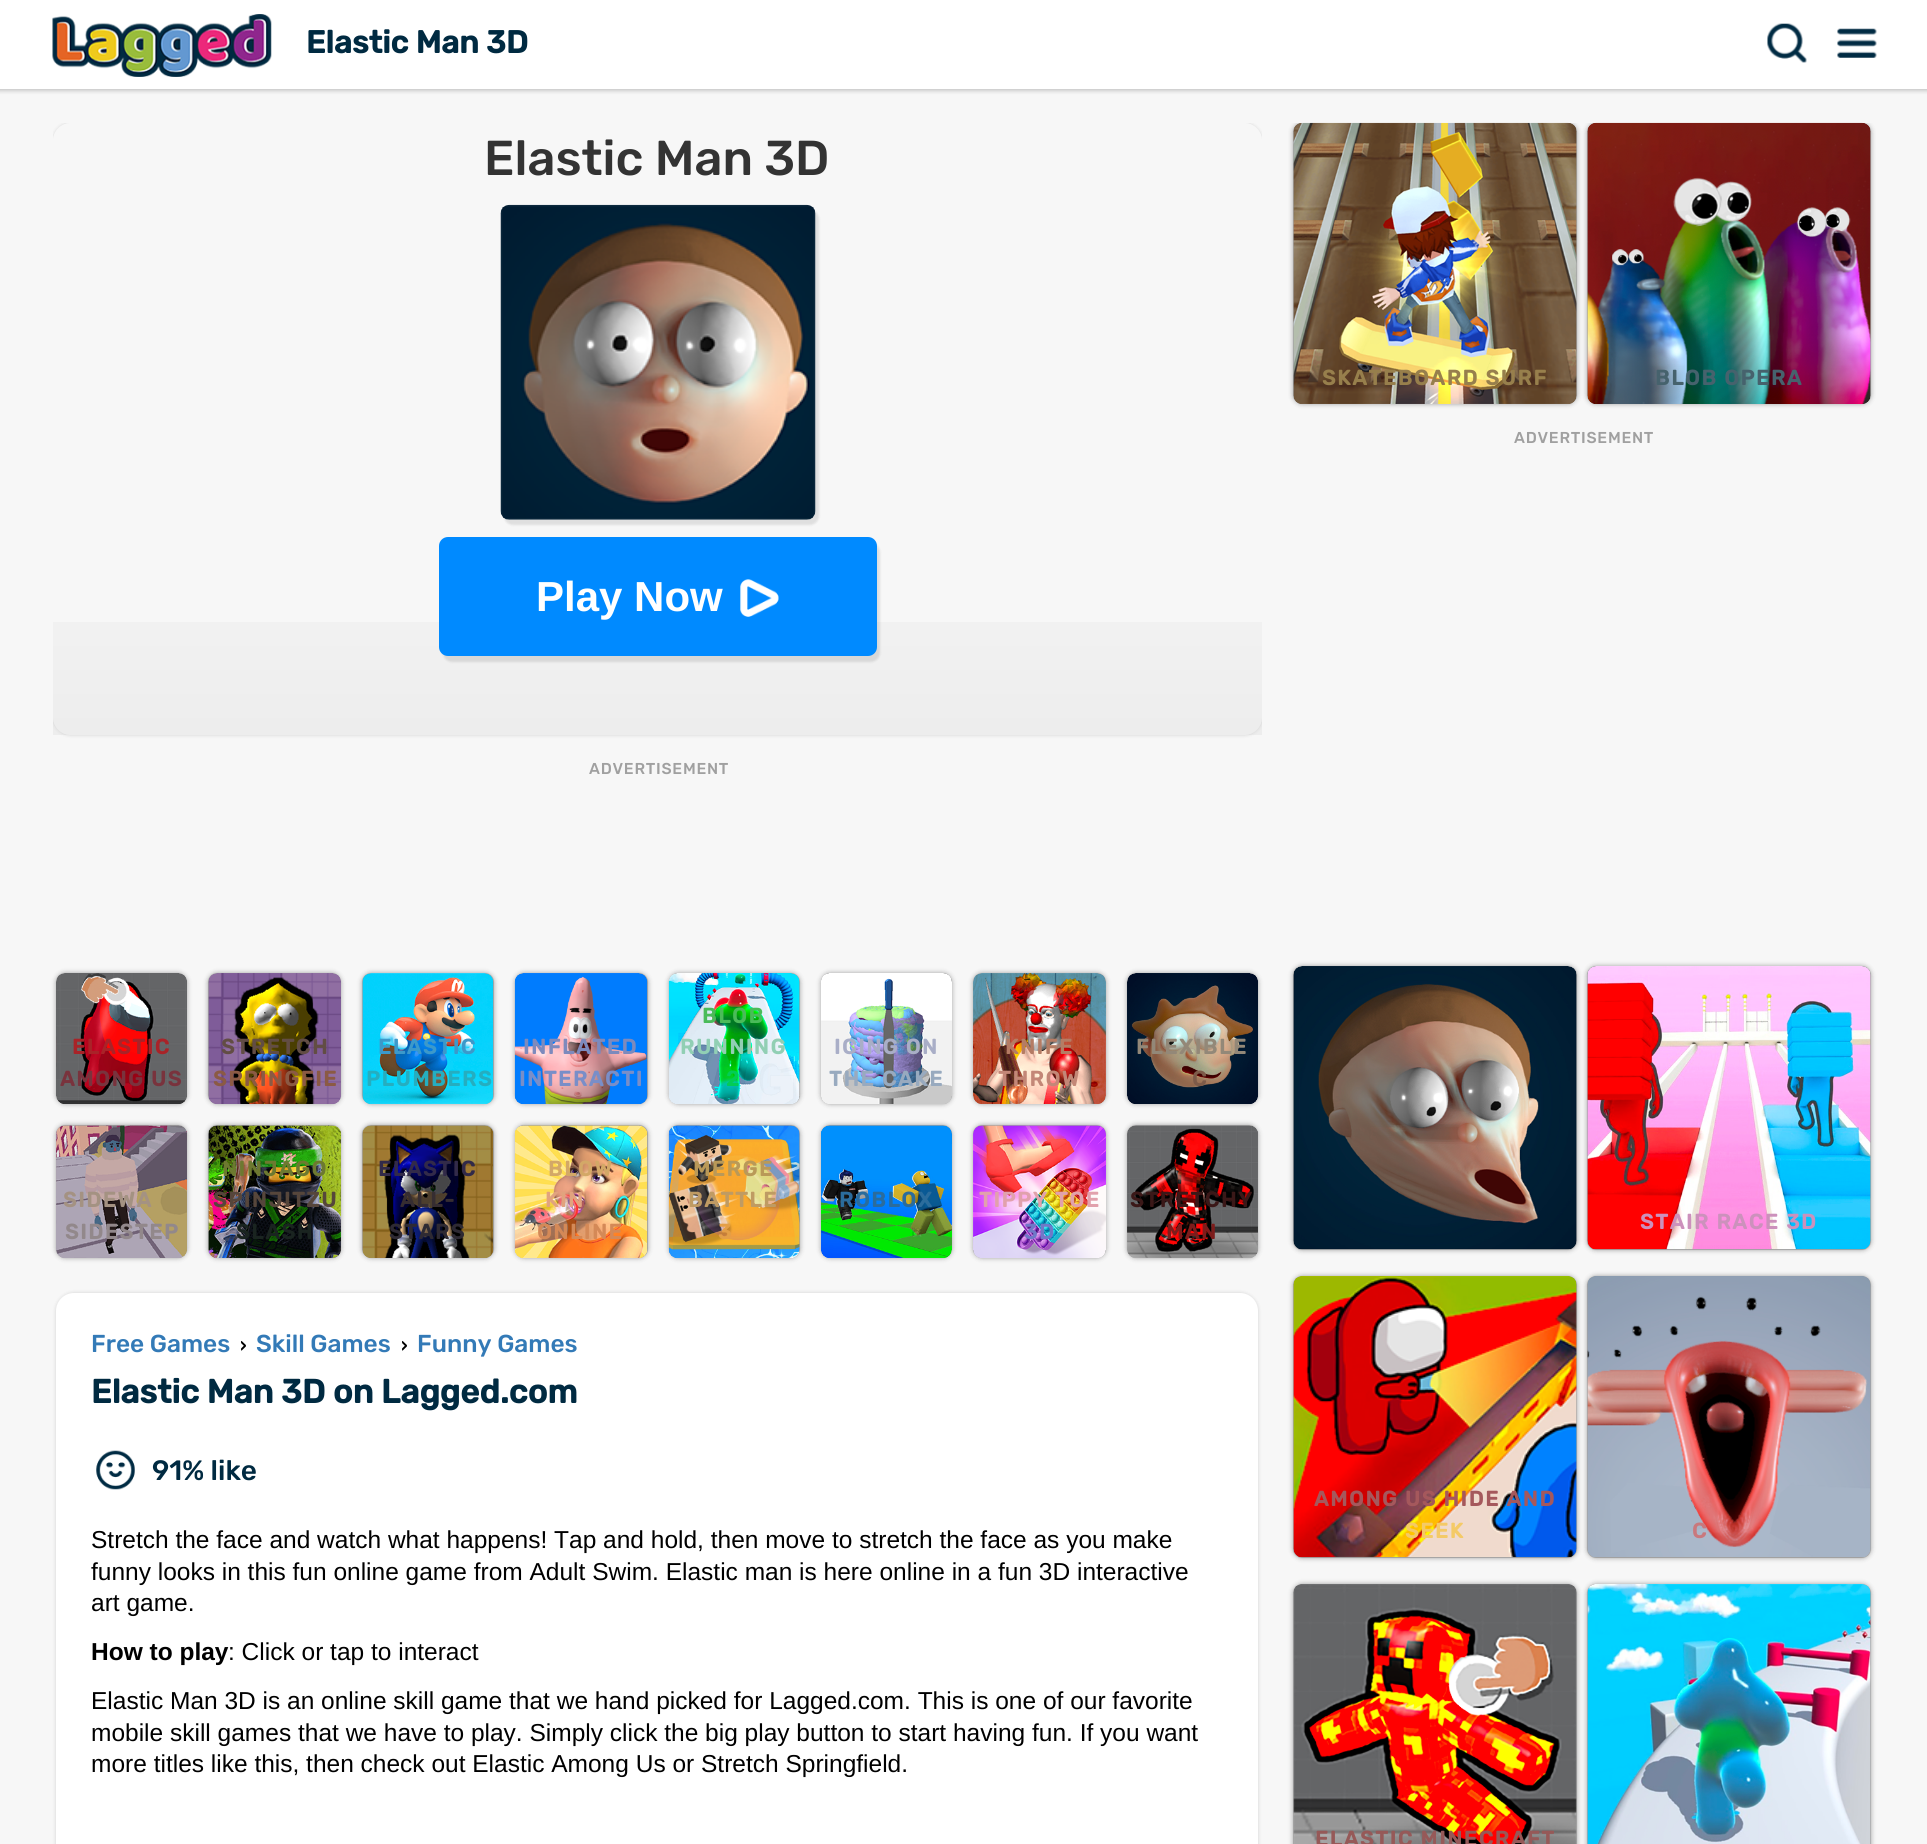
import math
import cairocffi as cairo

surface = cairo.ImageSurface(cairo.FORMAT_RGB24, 1927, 1844)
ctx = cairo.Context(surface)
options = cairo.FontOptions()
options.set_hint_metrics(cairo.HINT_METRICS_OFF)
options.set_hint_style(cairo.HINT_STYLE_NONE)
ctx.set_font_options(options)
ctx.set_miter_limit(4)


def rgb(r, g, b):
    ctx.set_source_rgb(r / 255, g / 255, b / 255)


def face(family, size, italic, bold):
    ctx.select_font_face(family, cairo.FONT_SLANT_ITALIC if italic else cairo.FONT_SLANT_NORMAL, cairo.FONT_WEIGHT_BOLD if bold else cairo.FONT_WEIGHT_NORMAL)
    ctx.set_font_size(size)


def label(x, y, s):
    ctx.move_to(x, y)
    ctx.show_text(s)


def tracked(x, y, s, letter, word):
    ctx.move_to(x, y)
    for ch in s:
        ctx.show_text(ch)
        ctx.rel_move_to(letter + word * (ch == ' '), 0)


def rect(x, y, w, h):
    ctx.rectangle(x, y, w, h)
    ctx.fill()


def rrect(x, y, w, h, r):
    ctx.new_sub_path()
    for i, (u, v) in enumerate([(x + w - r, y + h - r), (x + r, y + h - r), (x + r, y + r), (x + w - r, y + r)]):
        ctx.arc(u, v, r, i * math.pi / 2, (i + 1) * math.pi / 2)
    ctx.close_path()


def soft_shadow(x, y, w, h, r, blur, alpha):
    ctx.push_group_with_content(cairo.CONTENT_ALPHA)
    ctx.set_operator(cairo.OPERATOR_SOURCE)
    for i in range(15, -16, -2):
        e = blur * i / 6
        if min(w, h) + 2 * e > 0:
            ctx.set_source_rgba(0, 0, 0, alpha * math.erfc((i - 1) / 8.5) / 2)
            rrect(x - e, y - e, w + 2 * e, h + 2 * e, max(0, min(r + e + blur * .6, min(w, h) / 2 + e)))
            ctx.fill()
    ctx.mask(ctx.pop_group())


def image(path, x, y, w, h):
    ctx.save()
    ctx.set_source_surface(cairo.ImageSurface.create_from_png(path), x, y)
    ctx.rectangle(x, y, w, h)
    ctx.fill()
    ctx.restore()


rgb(247, 247, 247)
ctx.paint()
rgb(0, 0, 0)
soft_shadow(-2, -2, 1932, 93, 0, 2, 0.2)
rgb(255, 255, 255)
rect(0, 0, 1927, 89)
image('image0.png', 52, 14, 220, 63)
face('Rubik', 31.5, 0, 1)
rgb(0, 42, 65)
label(306, 53, 'Elastic Man 3D')
image('image1.png', 1767, 23, 40, 40)
image('image2.png', 1837, 28, 40, 30)
ctx.save()
ctx.rectangle(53, 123, 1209, 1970)
ctx.clip()
ctx.set_fill_rule(cairo.FILL_RULE_EVEN_ODD)
ctx.new_path()
ctx.move_to(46, 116)
ctx.line_to(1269, 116)
ctx.line_to(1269, 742)
ctx.line_to(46, 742)
ctx.close_path()
ctx.move_to(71, 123)
ctx.line_to(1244, 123)
ctx.curve_to(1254, 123, 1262, 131, 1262, 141)
ctx.line_to(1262, 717)
ctx.curve_to(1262, 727, 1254, 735, 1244, 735)
ctx.line_to(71, 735)
ctx.curve_to(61, 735, 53, 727, 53, 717)
ctx.line_to(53, 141)
ctx.curve_to(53, 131, 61, 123, 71, 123)
ctx.close_path()
ctx.clip()
rgb(0, 0, 0)
soft_shadow(53, 123, 1209, 612, 18, 2, 0.15)
ctx.restore()
gradient = cairo.LinearGradient(657, 122, 657, 735)
gradient.add_color_stop_rgba(0.6, 0, 0, 0, 0)
gradient.add_color_stop_rgba(1, 0, 0, 0, 0.04)
ctx.set_source(gradient)
rect(53, 622, 1209, 113)
face('Rubik Medium', 49, 0, 0)
rgb(51, 51, 51)
label(484, 175, 'Elastic Man 3D')
rgb(0, 0, 0)
soft_shadow(504, 210, 315, 315, 9, 1, 0.1)
image('image3.png', 500, 204, 316, 316)
soft_shadow(443, 543, 437, 119, 9, 1, 0.1)
rgb(0, 138, 255)
rrect(439, 537, 438, 119, 9)
ctx.fill()
face('Liberation Sans', 42, 0, 1)
rgb(255, 255, 255)
label(536, 611, 'Play Now')
image('image4.png', 740, 579, 39, 38)
face('Rubik Medium', 15.75, 0, 0)
rgb(160, 160, 160)
tracked(589, 774, 'ADVERTISEMENT', 0.75, 0)
rgb(0, 0, 0)
soft_shadow(56, 973, 131, 131, 9, 2.5, 0.35)
ctx.set_source_rgba(0, 0, 0, 0.18)
rrect(56, 973, 131, 131, 9)
ctx.fill()
image('image5.png', 56, 973, 131, 131)
face('Rubik', 21, 0, 1)
rgb(169, 35, 40)
tracked(72, 1054, 'ELASTIC', 1.75, 0)
rgb(121, 51, 61)
tracked(60, 1086, 'AMONG US', 1.75, 0)
rgb(0, 0, 0)
soft_shadow(208, 973, 133, 131, 9, 2.5, 0.35)
ctx.set_source_rgba(0, 0, 0, 0.18)
rrect(208, 973, 133, 131, 9)
ctx.fill()
image('image6.png', 208, 973, 133, 131)
rgb(98, 77, 68)
tracked(221, 1054, 'STRETCH', 1.75, 0)
rgb(139, 90, 68)
tracked(213, 1086, 'SPRINGFIE', 1.75, 0)
rgb(0, 0, 0)
soft_shadow(362, 973, 132, 131, 9, 2.5, 0.35)
ctx.set_source_rgba(0, 0, 0, 0.18)
rrect(362, 973, 132, 131, 9)
ctx.fill()
image('image7.png', 362, 973, 132, 131)
rgb(60, 153, 202)
tracked(378, 1054, 'ELASTIC', 1.75, 0)
rgb(37, 174, 192)
tracked(366, 1086, 'PLUMBERS', 1.75, 0)
rgb(0, 0, 0)
soft_shadow(515, 973, 133, 131, 9, 2.5, 0.35)
ctx.set_source_rgba(0, 0, 0, 0.18)
rrect(515, 973, 133, 131, 9)
ctx.fill()
image('image8.png', 514, 973, 134, 131)
rgb(125, 138, 189)
tracked(523, 1054, 'INFLATED', 1.75, 0)
rgb(121, 142, 200)
tracked(519, 1086, 'INTERACTI', 1.75, 0)
rgb(0, 0, 0)
soft_shadow(669, 973, 131, 131, 9, 2.5, 0.35)
ctx.set_source_rgba(0, 0, 0, 0.18)
rrect(669, 973, 131, 131, 9)
ctx.fill()
image('image9.png', 668, 973, 132, 131)
rgb(74, 187, 89)
tracked(702, 1023, 'BLOB', 1.75, 0)
rgb(145, 207, 180)
tracked(680, 1054, 'RUNNING', 1.75, 0)
rgb(2, 204, 86)
tracked(726, 1086, '2', 1.75, 0)
rgb(0, 0, 0)
soft_shadow(821, 973, 131, 131, 9, 2.5, 0.35)
ctx.set_source_rgba(0, 0, 0, 0.18)
rrect(821, 973, 131, 131, 9)
ctx.fill()
image('image10.png', 821, 973, 131, 131)
rgb(169, 174, 199)
tracked(834, 1054, 'ICING ON', 1.75, 0)
rgb(152, 170, 191)
tracked(829, 1086, 'THE CAKE', 1.75, 0)
rgb(0, 0, 0)
soft_shadow(973, 973, 133, 131, 9, 2.5, 0.35)
ctx.set_source_rgba(0, 0, 0, 0.18)
rrect(973, 973, 133, 131, 9)
ctx.fill()
image('image11.png', 973, 973, 133, 131)
rgb(181, 124, 100)
tracked(1005, 1054, 'KNIFE', 1.75, 0)
rgb(195, 135, 119)
tracked(998, 1086, 'THROW', 1.75, 0)
rgb(0, 0, 0)
soft_shadow(1127, 973, 131, 131, 9, 2.5, 0.35)
ctx.set_source_rgba(0, 0, 0, 0.18)
rrect(1127, 973, 131, 131, 9)
ctx.fill()
image('image12.png', 1127, 973, 131, 131)
rgb(147, 136, 120)
tracked(1136, 1054, 'FLEXIBLE', 1.75, 0)
rgb(125, 91, 73)
tracked(1192, 1086, 'C', 1.75, 0)
rgb(0, 0, 0)
soft_shadow(56, 1125, 131, 133, 9, 2.5, 0.35)
ctx.set_source_rgba(0, 0, 0, 0.18)
rrect(56, 1125, 131, 133, 9)
ctx.fill()
image('image13.png', 56, 1125, 131, 133)
rgb(164, 146, 130)
tracked(63, 1207, 'SIDEWA', 1.75, 0)
rgb(146, 136, 139)
tracked(65, 1239, 'SIDESTEP', 1.75, 0)
rgb(0, 0, 0)
soft_shadow(208, 1125, 133, 133, 9, 2.5, 0.35)
ctx.set_source_rgba(0, 0, 0, 0.18)
rrect(208, 1125, 133, 133, 9)
ctx.fill()
image('image14.png', 208, 1125, 133, 133)
rgb(109, 121, 48)
tracked(222, 1176, 'NINJAGO', 1.75, 0)
rgb(86, 70, 59)
tracked(213, 1207, 'SPINJITZU', 1.75, 0)
rgb(26, 36, 32)
tracked(236, 1239, 'SLASH', 1.75, 0)
rgb(0, 0, 0)
soft_shadow(362, 1125, 132, 133, 9, 2.5, 0.35)
ctx.set_source_rgba(0, 0, 0, 0.18)
rrect(362, 1125, 132, 133, 9)
ctx.fill()
image('image15.png', 362, 1125, 132, 133)
rgb(50, 42, 73)
tracked(378, 1176, 'ELASTIC', 1.75, 0)
rgb(54, 45, 49)
tracked(400, 1207, 'ALL-', 1.75, 0)
rgb(46, 42, 51)
tracked(389, 1239, 'STARS', 1.75, 0)
rgb(0, 0, 0)
soft_shadow(515, 1125, 133, 133, 9, 2.5, 0.35)
ctx.set_source_rgba(0, 0, 0, 0.18)
rrect(515, 1125, 133, 133, 9)
ctx.fill()
image('image16.png', 514, 1125, 134, 133)
rgb(211, 168, 103)
tracked(548, 1176, 'BLOW', 1.75, 0)
rgb(225, 163, 126)
tracked(545, 1207, 'KIN', 1.75, 0)
rgb(212, 137, 87)
tracked(537, 1239, 'ONLINE', 1.75, 0)
rgb(0, 0, 0)
soft_shadow(669, 1125, 131, 133, 9, 2.5, 0.35)
ctx.set_source_rgba(0, 0, 0, 0.18)
rrect(669, 1125, 131, 133, 9)
ctx.fill()
image('image17.png', 668, 1125, 132, 133)
rgb(185, 153, 88)
tracked(693, 1176, 'MERGE', 1.75, 0)
rgb(191, 155, 99)
tracked(688, 1207, 'BATTLE', 1.75, 0)
rgb(228, 159, 71)
tracked(718, 1239, '3', 1.75, 0)
rgb(0, 0, 0)
soft_shadow(821, 1125, 131, 133, 9, 2.5, 0.35)
ctx.set_source_rgba(0, 0, 0, 0.18)
rrect(821, 1125, 131, 133, 9)
ctx.fill()
image('image18.png', 821, 1125, 131, 133)
rgb(43, 108, 156)
tracked(839, 1207, 'ROBLOX', 1.75, 0)
rgb(0, 0, 0)
soft_shadow(973, 1125, 133, 133, 9, 2.5, 0.35)
ctx.set_source_rgba(0, 0, 0, 0.18)
rrect(973, 1125, 133, 133, 9)
ctx.fill()
image('image19.png', 973, 1125, 133, 133)
rgb(225, 161, 172)
tracked(979, 1207, 'TIPPY TOE', 1.75, 0)
rgb(111, 121, 200)
tracked(1024, 1239, '3D', 1.75, 0)
rgb(0, 0, 0)
soft_shadow(1127, 1125, 131, 133, 9, 2.5, 0.35)
ctx.set_source_rgba(0, 0, 0, 0.18)
rrect(1127, 1125, 131, 133, 9)
ctx.fill()
image('image20.png', 1127, 1125, 131, 133)
rgb(59, 24, 24)
tracked(1130, 1207, 'STRETCHY', 1.75, 0)
rgb(125, 28, 27)
tracked(1166, 1239, 'MAN', 1.75, 0)
rgb(0, 0, 0)
soft_shadow(56, 1293, 1202, 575, 18, 2, 0.15)
rgb(255, 255, 255)
rrect(56, 1293, 1202, 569, 18)
ctx.fill()
face('Rubik Medium', 24.5, 0, 0)
rgb(51, 122, 183)
label(91, 1352, 'Free Games')
face('Rubik Medium', 19, 0, 0)
rgb(0, 0, 0)
label(240, 1352, '›')
face('Rubik Medium', 24.5, 0, 0)
rgb(51, 122, 183)
label(256, 1352, 'Skill Games')
face('Rubik Medium', 19, 0, 0)
rgb(0, 0, 0)
label(401, 1352, '›')
face('Rubik Medium', 24.5, 0, 0)
rgb(51, 122, 183)
label(417, 1352, 'Funny Games')
face('Rubik', 33.25, 0, 1)
rgb(0, 42, 65)
label(91, 1403, 'Elastic Man 3D on Lagged.com')
image('image21.png', 96, 1450, 39, 40)
face('Rubik Medium', 28, 0, 0)
label(152, 1480, '91% like')
face('Liberation Sans', 24.5, 0, 0)
rgb(0, 0, 0)
label(91, 1548, 'Stretch the face and watch what happens! Tap and hold, then move to stretch the face as you make')
label(91, 1580, 'funny looks in this fun online game from Adult Swim. Elastic man is here online in a fun 3D interactive')
label(91, 1611, 'art game.')
face('Liberation Sans', 24.5, 0, 1)
label(91, 1660, 'How to play')
face('Liberation Sans', 24.5, 0, 0)
label(228, 1660, ': Click or tap to interact')
label(91, 1709, 'Elastic Man 3D is an online skill game that we hand picked for Lagged.com. This is one of our favorite')
label(91, 1741, 'mobile skill games that we have to play. Simply click the big play button to start having fun. If you want')
label(91, 1772, 'more titles like this, then check out Elastic Among Us or Stretch Springfield.')
ctx.save()
ctx.rectangle(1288, 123, 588, 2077)
ctx.clip()
rgb(0, 0, 0)
soft_shadow(1293, 123, 284, 281, 9, 2.5, 0.35)
ctx.restore()
ctx.set_source_rgba(0, 0, 0, 0.18)
rrect(1293, 123, 284, 281, 9)
ctx.fill()
image('image22.png', 1293, 122, 284, 282)
face('Rubik', 21, 0, 1)
rgb(151, 127, 76)
tracked(1322, 385, 'SKATEBOARD SURF', 1.75, 0)
ctx.save()
ctx.rectangle(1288, 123, 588, 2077)
ctx.clip()
rgb(0, 0, 0)
soft_shadow(1587, 123, 284, 281, 9, 2.5, 0.35)
ctx.restore()
ctx.set_source_rgba(0, 0, 0, 0.18)
rrect(1587, 123, 284, 281, 9)
ctx.fill()
image('image23.png', 1587, 122, 284, 282)
rgb(70, 98, 109)
tracked(1655, 385, 'BLOB OPERA', 1.75, 0)
face('Rubik Medium', 15.75, 0, 0)
rgb(160, 160, 160)
tracked(1514, 443, 'ADVERTISEMENT', 0.75, 0)
rgb(0, 0, 0)
soft_shadow(1293, 966, 284, 284, 9, 2.5, 0.35)
ctx.set_source_rgba(0, 0, 0, 0.18)
rrect(1293, 966, 284, 284, 9)
ctx.fill()
image('image24.png', 1293, 966, 284, 284)
rgb(0, 0, 0)
soft_shadow(1587, 966, 284, 284, 9, 2.5, 0.35)
ctx.set_source_rgba(0, 0, 0, 0.18)
rrect(1587, 966, 284, 284, 9)
ctx.fill()
image('image25.png', 1587, 966, 284, 284)
face('Rubik', 21, 0, 1)
rgb(204, 145, 188)
tracked(1640, 1229, 'STAIR RACE 3D', 1.75, 0)
rgb(0, 0, 0)
soft_shadow(1293, 1276, 284, 282, 9, 2.5, 0.35)
ctx.set_source_rgba(0, 0, 0, 0.18)
rrect(1293, 1276, 284, 282, 9)
ctx.fill()
image('image26.png', 1293, 1276, 284, 282)
rgb(165, 88, 92)
tracked(1314, 1506, 'AMONG US HIDE AND', 1.75, 0)
rgb(244, 202, 103)
tracked(1405, 1538, 'SEEK', 1.75, 0)
rgb(0, 0, 0)
soft_shadow(1587, 1276, 284, 282, 9, 2.5, 0.35)
ctx.set_source_rgba(0, 0, 0, 0.18)
rrect(1587, 1276, 284, 282, 9)
ctx.fill()
image('image27.png', 1587, 1276, 284, 281)
rgb(201, 120, 125)
tracked(1692, 1538, 'C', 1.75, 0)
rgb(0, 0, 0)
soft_shadow(1293, 1584, 284, 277, 9, 2.5, 0.35)
ctx.set_source_rgba(0, 0, 0, 0.18)
rrect(1293, 1584, 284, 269, 9)
ctx.fill()
image('image28.png', 1293, 1584, 284, 260)
rgb(150, 89, 88)
tracked(1315, 1846, 'ELASTIC MINECRAFT', 1.75, 0)
rgb(0, 0, 0)
soft_shadow(1587, 1584, 284, 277, 9, 2.5, 0.35)
ctx.set_source_rgba(0, 0, 0, 0.18)
rrect(1587, 1584, 284, 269, 9)
ctx.fill()
image('image29.png', 1587, 1584, 284, 260)
surface.write_to_png('render.png')
